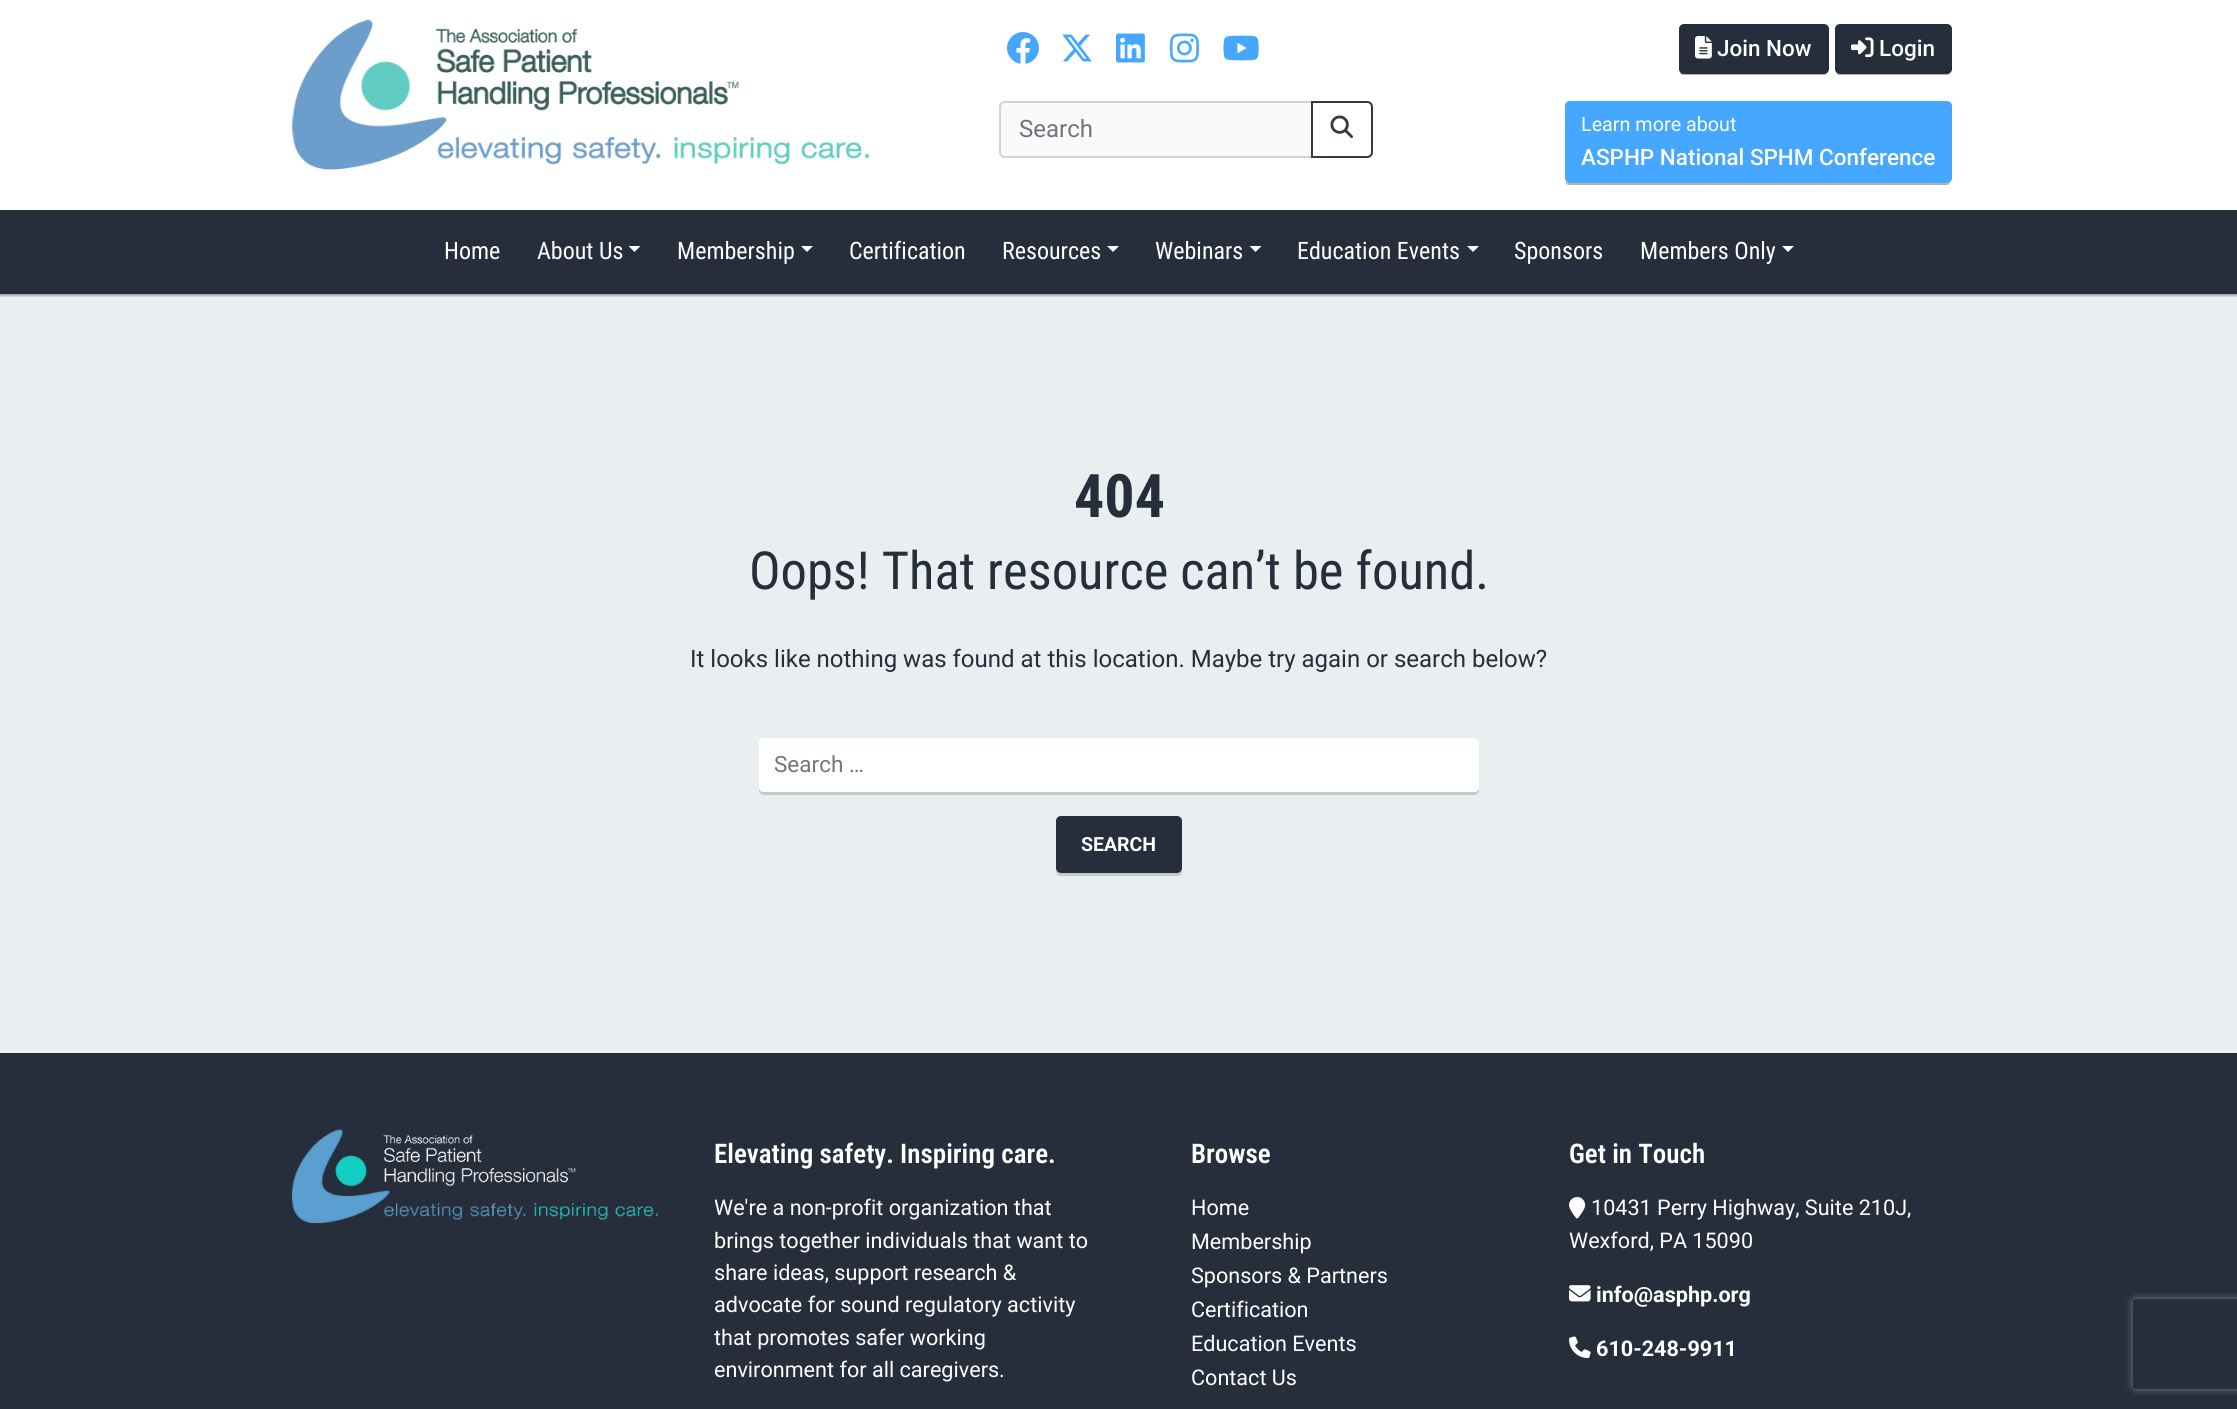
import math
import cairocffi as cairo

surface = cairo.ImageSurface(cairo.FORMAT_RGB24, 2237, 1409)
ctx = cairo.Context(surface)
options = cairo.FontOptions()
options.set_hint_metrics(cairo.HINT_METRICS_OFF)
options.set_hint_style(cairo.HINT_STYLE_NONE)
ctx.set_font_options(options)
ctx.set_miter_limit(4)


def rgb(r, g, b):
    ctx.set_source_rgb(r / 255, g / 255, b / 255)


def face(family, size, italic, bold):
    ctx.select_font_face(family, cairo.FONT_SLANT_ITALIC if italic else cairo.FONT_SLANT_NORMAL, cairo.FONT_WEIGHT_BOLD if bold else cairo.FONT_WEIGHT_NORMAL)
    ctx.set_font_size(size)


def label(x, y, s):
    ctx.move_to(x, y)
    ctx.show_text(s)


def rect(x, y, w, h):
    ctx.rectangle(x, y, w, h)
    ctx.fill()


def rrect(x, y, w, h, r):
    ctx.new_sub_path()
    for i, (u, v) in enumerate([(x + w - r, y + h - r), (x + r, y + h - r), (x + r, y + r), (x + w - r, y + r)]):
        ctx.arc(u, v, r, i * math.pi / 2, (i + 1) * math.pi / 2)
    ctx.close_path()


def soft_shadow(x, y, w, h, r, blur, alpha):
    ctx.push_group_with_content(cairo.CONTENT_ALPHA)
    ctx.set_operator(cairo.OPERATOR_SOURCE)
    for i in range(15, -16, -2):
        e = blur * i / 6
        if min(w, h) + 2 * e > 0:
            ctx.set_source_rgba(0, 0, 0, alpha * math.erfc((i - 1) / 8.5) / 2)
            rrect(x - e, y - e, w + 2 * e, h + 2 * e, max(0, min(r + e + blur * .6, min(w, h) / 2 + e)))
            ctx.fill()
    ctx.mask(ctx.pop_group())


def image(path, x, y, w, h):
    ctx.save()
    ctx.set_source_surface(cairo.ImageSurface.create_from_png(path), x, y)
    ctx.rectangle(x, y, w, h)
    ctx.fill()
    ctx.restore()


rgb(255, 255, 255)
ctx.paint()
rgb(233, 238, 240)
rect(0, 294, 2237, 759)
ctx.save()
ctx.rectangle(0, 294, 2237, 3)
ctx.clip()
rgb(0, 0, 0)
soft_shadow(0, 2, 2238, 294, 0, 1, 0.3)
ctx.restore()
image('image0.png', 291, 19, 578, 151)
image('image1.png', 1007, 32, 32, 32)
image('image2.png', 1062, 34, 30, 28)
image('image3.png', 1116, 33, 29, 30)
image('image4.png', 1170, 33, 29, 30)
image('image5.png', 1223, 35, 36, 26)
rgb(179, 179, 179)
ctx.new_path()
ctx.move_to(1680, 72)
ctx.curve_to(1680, 74, 1681, 75, 1683, 75)
ctx.line_to(1824, 75)
ctx.curve_to(1826, 75, 1827, 74, 1827, 72)
ctx.line_to(1824, 73)
ctx.line_to(1683, 73)
ctx.close_path()
ctx.fill()
rgb(38, 45, 59)
rrect(1679, 24, 150, 50, 5)
ctx.fill()
image('image6.png', 1695, 36, 17, 23)
face('Roboto Medium', 22.5, 0, 0)
rgb(255, 255, 255)
label(1717, 56, 'Join Now')
rgb(179, 179, 179)
ctx.new_path()
ctx.move_to(1836, 72)
ctx.curve_to(1836, 74, 1837, 75, 1839, 75)
ctx.line_to(1947, 75)
ctx.curve_to(1949, 75, 1950, 74, 1950, 72)
ctx.curve_to(1949, 73, 1948, 74, 1947, 74)
ctx.line_to(1839, 74)
ctx.curve_to(1838, 74, 1837, 73, 1836, 72)
ctx.close_path()
ctx.fill()
rgb(38, 45, 59)
rrect(1835, 24, 117, 50, 5)
ctx.fill()
image('image7.png', 1851, 37, 23, 21)
rgb(255, 255, 255)
label(1879, 56, 'Login')
rgb(250, 250, 250)
ctx.new_path()
ctx.move_to(1005, 102)
ctx.line_to(1312, 102)
ctx.line_to(1312, 157)
ctx.line_to(1005, 157)
ctx.curve_to(1002, 157, 1000, 155, 1000, 152)
ctx.line_to(1000, 107)
ctx.curve_to(1000, 104, 1002, 102, 1005, 102)
ctx.close_path()
ctx.fill_preserve()
rgb(206, 212, 218)
ctx.stroke()
face('Roboto', 24, 0, 0)
rgb(108, 117, 125)
label(1019, 137, 'Search')
ctx.new_path()
ctx.move_to(1312, 102)
ctx.line_to(1367, 102)
ctx.curve_to(1370, 102, 1372, 104, 1372, 107)
ctx.line_to(1372, 152)
ctx.curve_to(1372, 155, 1370, 157, 1367, 157)
ctx.line_to(1312, 157)
ctx.close_path()
rgb(52, 58, 64)
ctx.stroke()
image('image8.png', 1330, 115, 23, 23)
rgb(179, 179, 179)
ctx.new_path()
ctx.move_to(1566, 182)
ctx.curve_to(1566, 184, 1567, 185, 1569, 185)
ctx.line_to(1947, 185)
ctx.line_to(1949, 184)
ctx.line_to(1950, 182)
ctx.line_to(1947, 183)
ctx.line_to(1569, 183)
ctx.close_path()
ctx.fill()
rgb(69, 167, 255)
rrect(1565, 101, 387, 82, 5)
ctx.fill()
face('Roboto', 19.75, 0, 0)
rgb(255, 255, 255)
label(1581, 131, 'Learn more about')
face('Roboto Medium', 22.5, 0, 0)
label(1581, 165, 'ASPHP National SPHM Conference')
rgb(38, 45, 59)
rect(0, 210, 2237, 84)
face('Roboto Condensed', 24, 0, 0)
rgb(255, 255, 255)
label(444, 259, 'Home')
label(537, 259, 'About Us')
ctx.new_path()
ctx.move_to(628.5, 246)
ctx.line_to(640.5, 246)
ctx.line_to(634.5, 252)
ctx.close_path()
ctx.fill()
label(677, 259, 'Membership')
ctx.new_path()
ctx.move_to(801, 246)
ctx.line_to(813, 246)
ctx.line_to(807, 252)
ctx.close_path()
ctx.fill()
label(849, 259, 'Certification')
label(1002, 259, 'Resources')
ctx.new_path()
ctx.move_to(1107, 246)
ctx.line_to(1119, 246)
ctx.line_to(1113, 252)
ctx.close_path()
ctx.fill()
label(1155, 259, 'Webinars')
ctx.new_path()
ctx.move_to(1249.5, 246)
ctx.line_to(1261.5, 246)
ctx.line_to(1255.5, 252)
ctx.close_path()
ctx.fill()
label(1297, 259, 'Education Events')
ctx.new_path()
ctx.move_to(1467, 246)
ctx.line_to(1479, 246)
ctx.line_to(1473, 252)
ctx.close_path()
ctx.fill()
label(1514, 259, 'Sponsors')
label(1640, 259, 'Members Only')
ctx.new_path()
ctx.move_to(1782, 246)
ctx.line_to(1794, 246)
ctx.line_to(1788, 252)
ctx.close_path()
ctx.fill()
face('Roboto Condensed', 60, 0, 1)
rgb(38, 45, 59)
label(1074, 517, '404')
face('Roboto Condensed', 52.5, 0, 0)
label(749, 589, 'Oops! That resource can’t be found.')
face('Roboto', 24, 0, 0)
label(690, 667, 'It looks like nothing was found at this location. Maybe try again or search below?')
rgb(198, 202, 204)
ctx.new_path()
ctx.move_to(759, 788)
ctx.line_to(759, 790)
ctx.curve_to(759, 793, 761, 795, 764, 795)
ctx.line_to(1474, 795)
ctx.curve_to(1477, 795, 1479, 793, 1479, 790)
ctx.line_to(1479, 788)
ctx.curve_to(1479, 790, 1477, 792, 1474, 792)
ctx.line_to(764, 792)
ctx.curve_to(761, 792, 759, 790, 759, 788)
ctx.close_path()
ctx.fill()
rgb(255, 255, 255)
rrect(759, 738, 720, 54, 5)
ctx.fill()
face('Roboto', 22.5, 0, 0)
rgb(117, 117, 117)
label(774, 772, 'Search …')
rgb(198, 202, 204)
ctx.new_path()
ctx.move_to(1056, 868)
ctx.line_to(1056, 871)
ctx.curve_to(1056, 874, 1058, 876, 1061, 876)
ctx.line_to(1177, 876)
ctx.curve_to(1180, 876, 1182, 874, 1182, 871)
ctx.line_to(1182, 868)
ctx.curve_to(1182, 871, 1180, 873, 1178, 873)
ctx.line_to(1060, 873)
ctx.curve_to(1058, 873, 1056, 871, 1056, 868)
ctx.close_path()
ctx.fill()
rgb(38, 45, 59)
rrect(1056, 816, 126, 57, 5)
ctx.fill()
face('Roboto', 19.5, 0, 1)
rgb(255, 255, 255)
label(1081, 851, 'SEARCH')
rgb(38, 45, 59)
rect(0, 1053, 2237, 356)
image('image9.png', 292, 1129, 366, 95)
face('Roboto Condensed SemiBold', 27, 0, 0)
rgb(255, 255, 255)
label(714, 1163, 'Elevating safety. Inspiring care.')
face('Roboto', 21.6, 0, 0)
label(714, 1215, 'We\'re a non-profit organization that')
label(714, 1248, 'brings together individuals that want to')
label(714, 1280, 'share ideas, support research &')
label(714, 1312, 'advocate for sound regulatory activity')
label(714, 1345, 'that promotes safer working')
label(714, 1377, 'environment for all caregivers.')
face('Roboto Condensed SemiBold', 27, 0, 0)
label(1191, 1163, 'Browse')
face('Roboto', 21.6, 0, 0)
label(1191, 1215, 'Home')
label(1191, 1249, 'Membership')
label(1191, 1283, 'Sponsors & Partners')
label(1191, 1317, 'Certification')
label(1191, 1351, 'Education Events')
label(1191, 1385, 'Contact Us')
face('Roboto Condensed SemiBold', 27, 0, 0)
label(1569, 1163, 'Get in Touch')
image('image10.png', 1569, 1197, 17, 22)
face('Roboto', 21.6, 0, 0)
label(1591, 1215, '10431 Perry Highway, Suite 210J,')
label(1569, 1248, 'Wexford, PA 15090')
image('image11.png', 1569, 1285, 22, 17)
face('Roboto', 21.6, 0, 1)
label(1596, 1302, 'info@asphp.org')
image('image12.png', 1569, 1336, 22, 23)
label(1596, 1356, '610-248-9911')
ctx.save()
ctx.set_fill_rule(cairo.FILL_RULE_EVEN_ODD)
ctx.new_path()
ctx.move_to(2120, 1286)
ctx.line_to(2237, 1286)
ctx.line_to(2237, 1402)
ctx.line_to(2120, 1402)
ctx.close_path()
ctx.move_to(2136, 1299)
ctx.line_to(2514, 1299)
ctx.curve_to(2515.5, 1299, 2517, 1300.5, 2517, 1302)
ctx.line_to(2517, 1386)
ctx.curve_to(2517, 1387.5, 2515.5, 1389, 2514, 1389)
ctx.line_to(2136, 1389)
ctx.curve_to(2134.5, 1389, 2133, 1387.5, 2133, 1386)
ctx.line_to(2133, 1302)
ctx.curve_to(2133, 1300.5, 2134.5, 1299, 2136, 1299)
ctx.close_path()
ctx.clip()
rgb(128, 128, 128)
soft_shadow(2133, 1299, 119, 90, 3, 4, 1)
ctx.restore()
surface.write_to_png('render.png')
